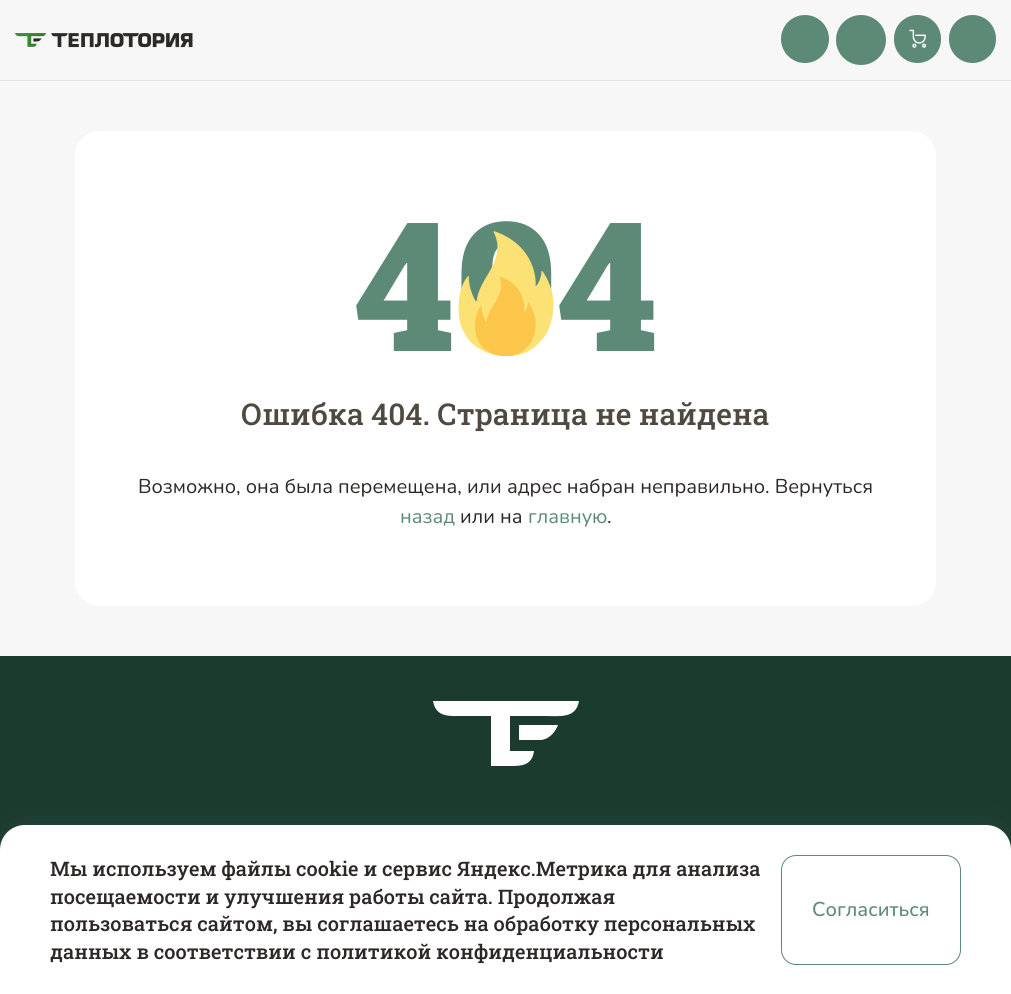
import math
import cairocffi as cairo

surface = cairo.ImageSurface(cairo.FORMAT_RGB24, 1011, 994)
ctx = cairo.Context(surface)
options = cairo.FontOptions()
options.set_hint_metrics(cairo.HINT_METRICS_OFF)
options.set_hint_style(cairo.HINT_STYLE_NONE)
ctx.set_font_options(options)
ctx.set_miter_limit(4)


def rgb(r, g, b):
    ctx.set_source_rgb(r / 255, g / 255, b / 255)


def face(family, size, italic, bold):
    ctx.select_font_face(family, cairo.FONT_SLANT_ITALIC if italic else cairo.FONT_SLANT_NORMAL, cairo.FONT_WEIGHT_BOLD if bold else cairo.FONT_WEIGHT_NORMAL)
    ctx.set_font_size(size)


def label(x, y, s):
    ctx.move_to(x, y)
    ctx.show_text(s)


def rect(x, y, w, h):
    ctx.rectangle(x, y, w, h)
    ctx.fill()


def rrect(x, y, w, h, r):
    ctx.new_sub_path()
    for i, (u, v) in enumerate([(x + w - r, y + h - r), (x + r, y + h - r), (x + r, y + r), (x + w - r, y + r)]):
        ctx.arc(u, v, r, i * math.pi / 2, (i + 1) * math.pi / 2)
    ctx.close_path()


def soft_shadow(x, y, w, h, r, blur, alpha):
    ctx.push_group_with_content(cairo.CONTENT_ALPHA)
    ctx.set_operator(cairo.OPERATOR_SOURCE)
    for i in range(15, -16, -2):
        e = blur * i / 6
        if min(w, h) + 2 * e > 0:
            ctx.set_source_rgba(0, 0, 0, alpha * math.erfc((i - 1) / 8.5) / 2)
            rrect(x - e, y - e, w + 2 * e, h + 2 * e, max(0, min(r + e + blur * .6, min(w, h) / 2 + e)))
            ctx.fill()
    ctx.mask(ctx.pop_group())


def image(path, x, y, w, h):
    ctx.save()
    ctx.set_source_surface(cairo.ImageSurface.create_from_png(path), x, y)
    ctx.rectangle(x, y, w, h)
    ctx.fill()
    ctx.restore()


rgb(247, 247, 247)
ctx.paint()
rgb(230, 228, 223)
rect(0, 80, 1011, 1)
image('image0.png', 15, 33, 178, 15)
rgb(92, 138, 119)
ctx.arc(805, 39, 24, 0, 2 * math.pi)
ctx.fill()
ctx.arc(861, 40, 25, 0, 2 * math.pi)
ctx.fill()
rrect(894, 15, 47, 48, 23.5)
ctx.fill()
image('image1.png', 909, 29, 18, 19)
rrect(949, 15, 47, 48, 23.5)
ctx.fill()
rgb(255, 255, 255)
rrect(75, 131, 861, 475, 25)
ctx.fill()
face('Roboto Slab Black', 180, 0, 0)
rgb(92, 138, 119)
label(354, 351, '404')
image('image2.png', 458, 231, 96, 125)
face('Roboto Slab Medium', 30, 0, 0)
rgb(79, 74, 65)
label(241, 425, 'Ошибка 404. Страница не найдена')
face('Nunito', 20, 0, 0)
rgb(45, 39, 39)
label(138, 493, 'Возможно, она была перемещена, или адрес набран неправильно. Вернуться')
rgb(92, 138, 119)
label(400, 523, 'назад')
rgb(45, 39, 39)
label(460, 523, 'или на')
rgb(92, 138, 119)
label(528, 523, 'главную')
rgb(45, 39, 39)
label(607, 523, '.')
rgb(26, 59, 46)
rect(0, 656, 1011, 194)
rgb(255, 255, 255)
ctx.set_fill_rule(cairo.FILL_RULE_EVEN_ODD)
ctx.new_path()
ctx.move_to(491, 766)
ctx.line_to(491, 716)
ctx.line_to(464, 716)
ctx.curve_to(450, 716, 436, 718, 433, 701)
ctx.line_to(579, 701)
ctx.curve_to(576, 719, 559, 716, 545, 716)
ctx.line_to(510, 716)
ctx.line_to(510, 751)
ctx.line_to(534, 751)
ctx.curve_to(532, 766, 521, 766, 509, 766)
ctx.close_path()
ctx.move_to(540, 740)
ctx.curve_to(548, 740, 555, 733, 558, 725)
ctx.line_to(519, 725)
ctx.line_to(519, 740)
ctx.close_path()
ctx.fill()
rgb(156, 156, 156)
soft_shadow(0, 830, 1011, 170, 25, 12.5, 0.2)
rgb(255, 255, 255)
ctx.new_path()
ctx.move_to(25, 825)
ctx.line_to(986, 825)
ctx.curve_to(1000, 825, 1011, 836, 1011, 850)
ctx.line_to(1011, 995)
ctx.line_to(0, 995)
ctx.line_to(0, 850)
ctx.curve_to(0, 836, 11, 825, 25, 825)
ctx.close_path()
ctx.fill()
face('Roboto Slab Medium', 20, 0, 0)
rgb(45, 39, 39)
label(50, 876, 'Мы используем файлы cookie и сервис Яндекс.Метрика для анализа')
label(50, 904, 'посещаемости и улучшения работы сайта. Продолжая')
label(50, 931, 'пользоваться сайтом, вы соглашаетесь на обработку персональных')
label(50, 959, 'данных в соответствии с политикой конфиденциальности')
rrect(781.5, 855.5, 179, 109, 14.5)
rgb(92, 138, 119)
ctx.set_line_width(1)
ctx.stroke()
face('Nunito Medium', 20, 0, 0)
label(812, 916, 'Согласиться')
surface.write_to_png('render.png')
